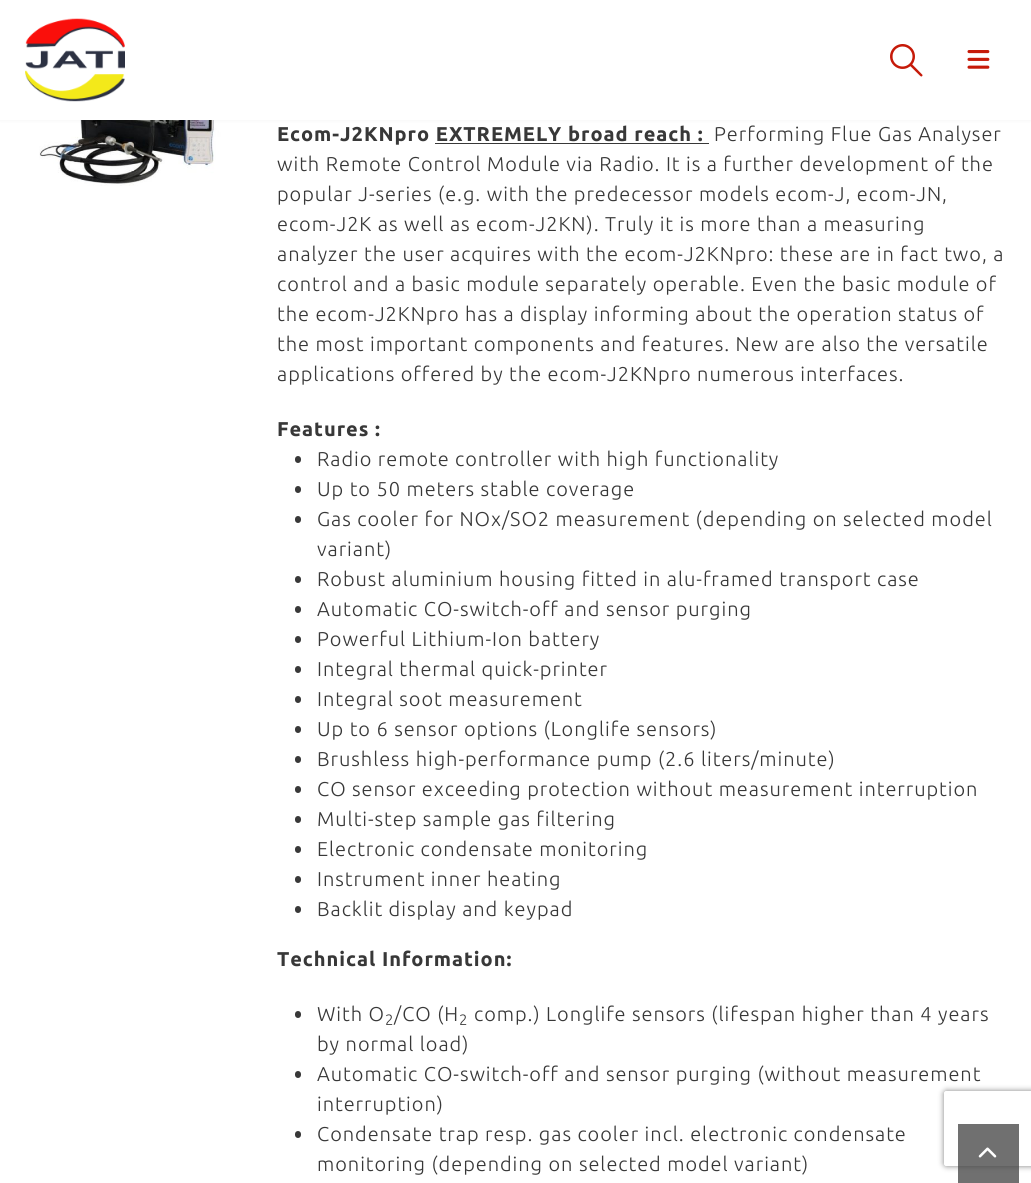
import math
import cairocffi as cairo

surface = cairo.ImageSurface(cairo.FORMAT_RGB24, 1031, 1183)
ctx = cairo.Context(surface)
options = cairo.FontOptions()
options.set_hint_metrics(cairo.HINT_METRICS_OFF)
options.set_hint_style(cairo.HINT_STYLE_NONE)
ctx.set_font_options(options)
ctx.set_miter_limit(4)


def rgb(r, g, b):
    ctx.set_source_rgb(r / 255, g / 255, b / 255)


def face(family, size, italic, bold):
    ctx.select_font_face(family, cairo.FONT_SLANT_ITALIC if italic else cairo.FONT_SLANT_NORMAL, cairo.FONT_WEIGHT_BOLD if bold else cairo.FONT_WEIGHT_NORMAL)
    ctx.set_font_size(size)


def tracked(x, y, s, letter, word):
    ctx.move_to(x, y)
    for ch in s:
        ctx.show_text(ch)
        ctx.rel_move_to(letter + word * (ch == ' '), 0)


def rect(x, y, w, h):
    ctx.rectangle(x, y, w, h)
    ctx.fill()


def rrect(x, y, w, h, r):
    ctx.new_sub_path()
    for i, (u, v) in enumerate([(x + w - r, y + h - r), (x + r, y + h - r), (x + r, y + r), (x + w - r, y + r)]):
        ctx.arc(u, v, r, i * math.pi / 2, (i + 1) * math.pi / 2)
    ctx.close_path()


def soft_shadow(x, y, w, h, r, blur, alpha):
    ctx.push_group_with_content(cairo.CONTENT_ALPHA)
    ctx.set_operator(cairo.OPERATOR_SOURCE)
    for i in range(15, -16, -2):
        e = blur * i / 6
        if min(w, h) + 2 * e > 0:
            ctx.set_source_rgba(0, 0, 0, alpha * math.erfc((i - 1) / 8.5) / 2)
            rrect(x - e, y - e, w + 2 * e, h + 2 * e, max(0, min(r + e + blur * .6, min(w, h) / 2 + e)))
            ctx.fill()
    ctx.mask(ctx.pop_group())


def image(path, x, y, w, h):
    ctx.save()
    ctx.set_source_surface(cairo.ImageSurface.create_from_png(path), x, y)
    ctx.rectangle(x, y, w, h)
    ctx.fill()
    ctx.restore()


rgb(255, 255, 255)
ctx.paint()
image('image3.png', 39, 120, 184, 66)
rgb(0, 0, 0)
soft_shadow(0, 0, 1031, 120, 0, 2, 0.06)
rgb(255, 255, 255)
rect(0, 0, 1031, 120)
image('image0.png', 25, 18, 100, 84)
image('image1.png', 890, 44, 33, 33)
image('image2.png', 967, 50, 23, 19)
face('Ubuntu', 20, 0, 1)
rgb(56, 56, 56)
tracked(277, 141, 'Ecom-J2KNpro EXTREMELY broad reach :', 0.95, 0)
rect(435, 143, 274, 1)
face('Ubuntu Light', 20, 0, 0)
tracked(714, 141, 'Performing Flue Gas Analyser', 0.95, 0)
tracked(277, 171, 'with Remote Control Module via Radio. It is a further development of the', 0.95, 0)
tracked(277, 201, 'popular J-series (e.g. with the predecessor models ecom-J, ecom-JN,', 0.95, 0)
tracked(277, 231, 'ecom-J2K as well as ecom-J2KN). Truly it is more than a measuring', 0.95, 0)
tracked(277, 261, 'analyzer the user acquires with the ecom-J2KNpro: these are in fact two, a', 0.95, 0)
tracked(277, 291, 'control and a basic module separately operable. Even the basic module of', 0.95, 0)
tracked(277, 321, 'the ecom-J2KNpro has a display informing about the operation status of', 0.95, 0)
tracked(277, 351, 'the most important components and features. New are also the versatile', 0.95, 0)
tracked(277, 381, 'applications offered by the ecom-J2KNpro numerous interfaces.', 0.95, 0)
face('Ubuntu', 20, 0, 1)
tracked(277, 436, 'Features :', 0.95, 0)
rrect(295, 456, 6, 7, 3)
ctx.fill()
face('Ubuntu Light', 20, 0, 0)
tracked(317, 466, 'Radio remote controller with high functionality', 0.95, 0)
rrect(295, 486, 6, 7, 3)
ctx.fill()
tracked(317, 496, 'Up to 50 meters stable coverage', 0.95, 0)
rrect(295, 516, 6, 7, 3)
ctx.fill()
tracked(317, 526, 'Gas cooler for NOx/SO2 measurement (depending on selected model', 0.95, 0)
tracked(317, 556, 'variant)', 0.95, 0)
rrect(295, 576, 6, 7, 3)
ctx.fill()
tracked(317, 586, 'Robust aluminium housing fitted in alu-framed transport case', 0.95, 0)
rrect(295, 606, 6, 7, 3)
ctx.fill()
tracked(317, 616, 'Automatic CO-switch-off and sensor purging', 0.95, 0)
rrect(295, 636, 6, 7, 3)
ctx.fill()
tracked(317, 646, 'Powerful Lithium-Ion battery', 0.95, 0)
rrect(295, 666, 6, 7, 3)
ctx.fill()
tracked(317, 676, 'Integral thermal quick-printer', 0.95, 0)
rrect(295, 696, 6, 7, 3)
ctx.fill()
tracked(317, 706, 'Integral soot measurement', 0.95, 0)
rrect(295, 726, 6, 7, 3)
ctx.fill()
tracked(317, 736, 'Up to 6 sensor options (Longlife sensors)', 0.95, 0)
rrect(295, 756, 6, 7, 3)
ctx.fill()
tracked(317, 766, 'Brushless high-performance pump (2.6 liters/minute)', 0.95, 0)
rrect(295, 786, 6, 7, 3)
ctx.fill()
tracked(317, 796, 'CO sensor exceeding protection without measurement interruption', 0.95, 0)
rrect(295, 816, 6, 7, 3)
ctx.fill()
tracked(317, 826, 'Multi-step sample gas filtering', 0.95, 0)
rrect(295, 846, 6, 7, 3)
ctx.fill()
tracked(317, 856, 'Electronic condensate monitoring', 0.95, 0)
rrect(295, 876, 6, 7, 3)
ctx.fill()
tracked(317, 886, 'Instrument inner heating', 0.95, 0)
rrect(295, 906, 6, 7, 3)
ctx.fill()
tracked(317, 916, 'Backlit display and keypad', 0.95, 0)
face('Ubuntu', 20, 0, 1)
tracked(277, 966, 'Technical Information:', 0.95, 0)
rrect(295, 1011, 6, 7, 3)
ctx.fill()
face('Ubuntu Light', 20, 0, 0)
tracked(317, 1021, 'With O', 0.95, 0)
face('Ubuntu Light', 15, 0, 0)
tracked(385, 1025, '2', 0.95, 0)
face('Ubuntu Light', 20, 0, 0)
tracked(394, 1021, '/CO (H', 0.95, 0)
face('Ubuntu Light', 15, 0, 0)
tracked(459, 1025, '2', 0.95, 0)
face('Ubuntu Light', 20, 0, 0)
tracked(474, 1021, 'comp.) Longlife sensors (lifespan higher than 4 years', 0.95, 0)
tracked(317, 1051, 'by normal load)', 0.95, 0)
rrect(295, 1071, 6, 7, 3)
ctx.fill()
tracked(317, 1081, 'Automatic CO-switch-off and sensor purging (without measurement', 0.95, 0)
tracked(317, 1111, 'interruption)', 0.95, 0)
rrect(295, 1131, 6, 7, 3)
ctx.fill()
tracked(317, 1141, 'Condensate trap resp. gas cooler incl. electronic condensate', 0.95, 0)
tracked(317, 1171, 'monitoring (depending on selected model variant)', 0.95, 0)
ctx.save()
ctx.set_fill_rule(cairo.FILL_RULE_EVEN_ODD)
ctx.new_path()
ctx.move_to(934, 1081)
ctx.line_to(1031, 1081)
ctx.line_to(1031, 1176)
ctx.line_to(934, 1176)
ctx.close_path()
ctx.move_to(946.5, 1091)
ctx.line_to(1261.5, 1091)
ctx.curve_to(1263, 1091, 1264, 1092, 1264, 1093.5)
ctx.line_to(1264, 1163.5)
ctx.curve_to(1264, 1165, 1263, 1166, 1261.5, 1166)
ctx.line_to(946.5, 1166)
ctx.curve_to(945, 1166, 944, 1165, 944, 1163.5)
ctx.line_to(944, 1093.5)
ctx.curve_to(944, 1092, 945, 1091, 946.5, 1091)
ctx.close_path()
ctx.clip()
rgb(128, 128, 128)
soft_shadow(944, 1091, 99, 75, 2.5, 3, 1)
ctx.restore()
ctx.set_source_rgba(0.251, 0.251, 0.251, 0.75)
rect(958, 1124, 61, 59)
image('image4.png', 978, 1147, 19, 11)
surface.write_to_png('render.png')
